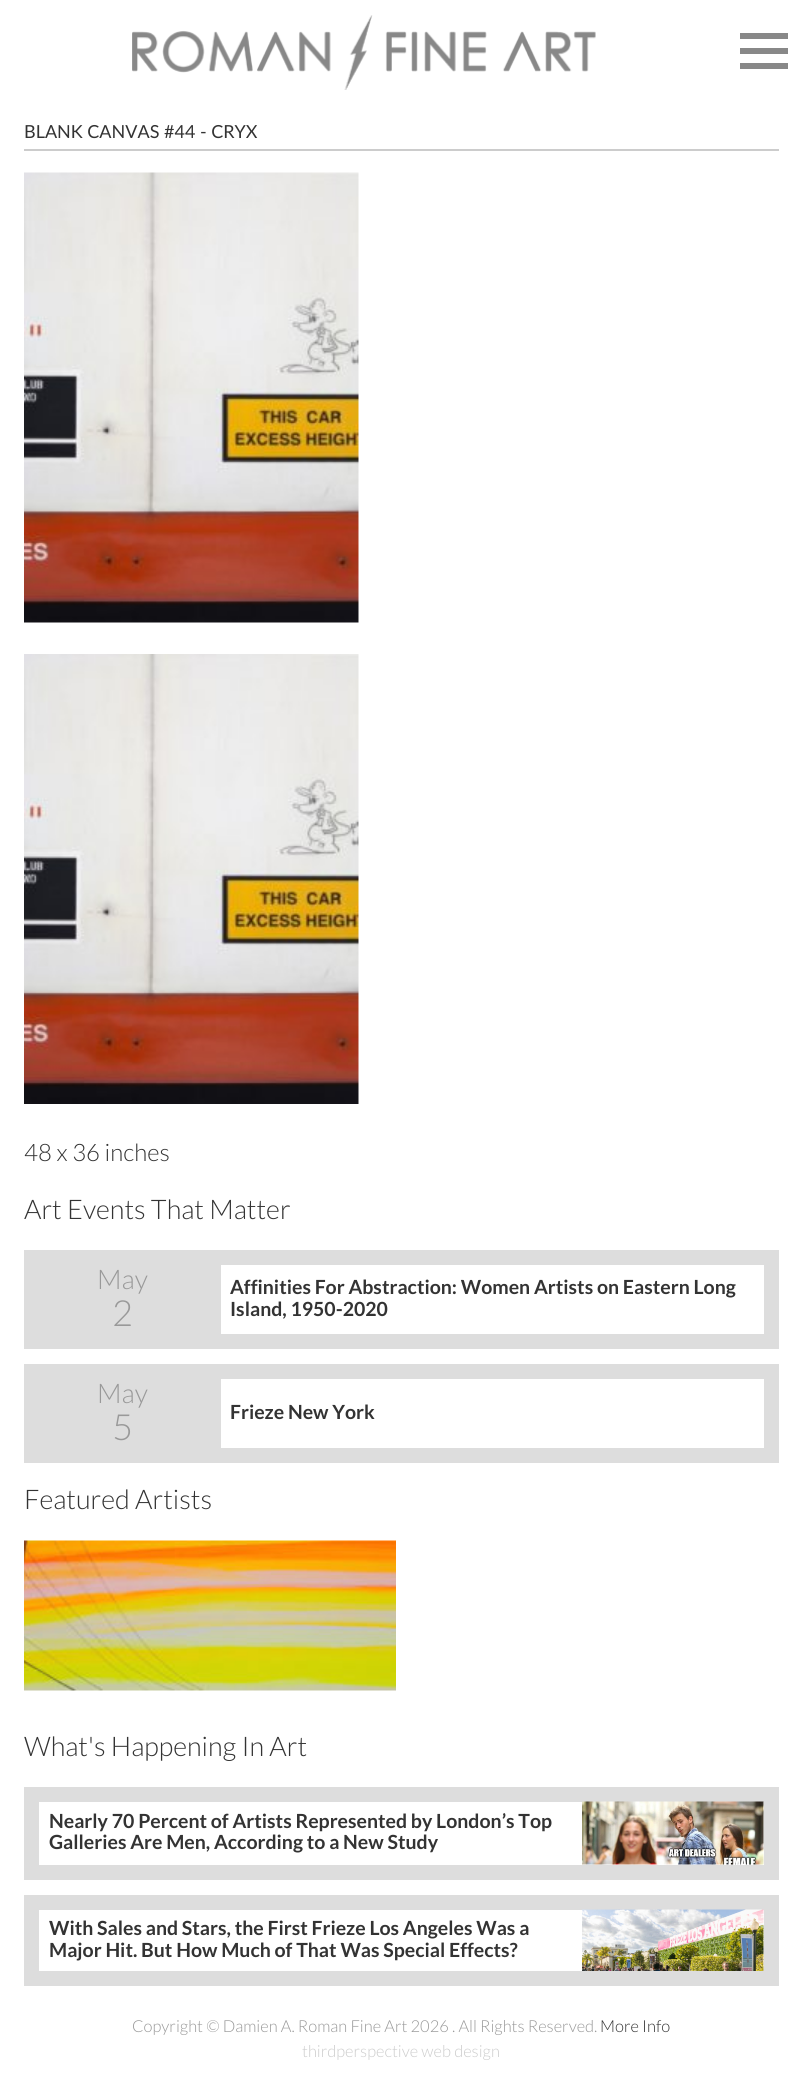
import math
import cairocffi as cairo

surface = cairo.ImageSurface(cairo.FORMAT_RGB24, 802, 2079)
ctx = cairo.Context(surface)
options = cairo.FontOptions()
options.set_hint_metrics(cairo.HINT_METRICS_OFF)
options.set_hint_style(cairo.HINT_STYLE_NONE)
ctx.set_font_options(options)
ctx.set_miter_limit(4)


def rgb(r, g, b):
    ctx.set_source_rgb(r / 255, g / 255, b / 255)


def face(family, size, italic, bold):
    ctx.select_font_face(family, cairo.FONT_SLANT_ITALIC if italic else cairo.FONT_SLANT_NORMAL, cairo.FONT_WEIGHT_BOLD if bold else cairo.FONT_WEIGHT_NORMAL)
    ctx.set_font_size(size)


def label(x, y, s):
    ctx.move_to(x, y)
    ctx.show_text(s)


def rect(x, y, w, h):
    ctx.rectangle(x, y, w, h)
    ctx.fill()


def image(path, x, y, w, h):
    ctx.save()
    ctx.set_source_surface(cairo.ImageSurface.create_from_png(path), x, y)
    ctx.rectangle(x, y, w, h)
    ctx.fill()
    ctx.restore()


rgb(255, 255, 255)
ctx.paint()
image('image0.png', 132, 15, 464, 75)
rgb(136, 136, 136)
rect(740, 33, 48, 6)
rect(740, 48, 48, 6)
rect(740, 63, 48, 6)
rgb(204, 204, 204)
rect(24, 149, 755, 2)
face('Lato', 18, 0, 0)
rgb(51, 51, 51)
label(24, 138, 'BLANK CANVAS #44 - CRYX')
image('image1.png', 24, 172, 335, 451)
image('image2.png', 24, 654, 335, 450)
face('Lato Light', 24, 0, 0)
label(24, 1161, '48 x 36 inches')
face('Lato Light', 27, 0, 0)
label(24, 1219, 'Art Events That Matter')
ctx.rectangle(31.5, 1257.5, 740, 84)
rgb(221, 221, 221)
ctx.set_line_width(15)
ctx.stroke()
rect(39, 1265, 182, 69)
rgb(153, 153, 153)
label(97, 1289, 'May')
face('Lato Light', 36, 0, 0)
label(112, 1326, '2')
face('Lato', 19.5, 0, 1)
rgb(51, 51, 51)
label(230, 1294, 'Affinities For Abstraction: Women Artists on Eastern Long')
label(230, 1316, 'Island, 1950-2020')
ctx.rectangle(31.5, 1371.5, 740, 84)
rgb(221, 221, 221)
ctx.stroke()
rect(39, 1379, 182, 69)
face('Lato Light', 27, 0, 0)
rgb(153, 153, 153)
label(97, 1403, 'May')
face('Lato Light', 36, 0, 0)
label(112, 1440, '5')
face('Lato', 19.5, 0, 1)
rgb(51, 51, 51)
label(230, 1419, 'Frieze New York')
face('Lato Light', 27, 0, 0)
label(24, 1509, 'Featured Artists')
image('image3.png', 24, 1540, 372, 151)
label(24, 1756, 'What\'s Happening In Art')
ctx.rectangle(31.5, 1794.5, 740, 78)
rgb(221, 221, 221)
ctx.stroke()
face('Lato', 19.5, 0, 1)
rgb(51, 51, 51)
label(49, 1828, 'Nearly 70 Percent of Artists Represented by London’s Top')
label(49, 1849, 'Galleries Are Men, According to a New Study')
image('image4.png', 582, 1801, 182, 64)
ctx.rectangle(31.5, 1902.5, 740, 76)
rgb(221, 221, 221)
ctx.stroke()
rgb(51, 51, 51)
label(49, 1935, 'With Sales and Stars, the First Frieze Los Angeles Was a')
label(49, 1957, 'Major Hit. But How Much of That Was Special Effects?')
image('image5.png', 582, 1909, 182, 62)
face('Lato Light', 16.5, 0, 0)
rgb(153, 153, 153)
label(132, 2032, 'Copyright © Damien A. Roman Fine Art 2026 . All Rights Reserved.')
rgb(51, 51, 51)
label(600, 2032, 'More Info')
rgb(204, 204, 204)
label(302, 2057, 'thirdperspective web design')
surface.write_to_png('render.png')
